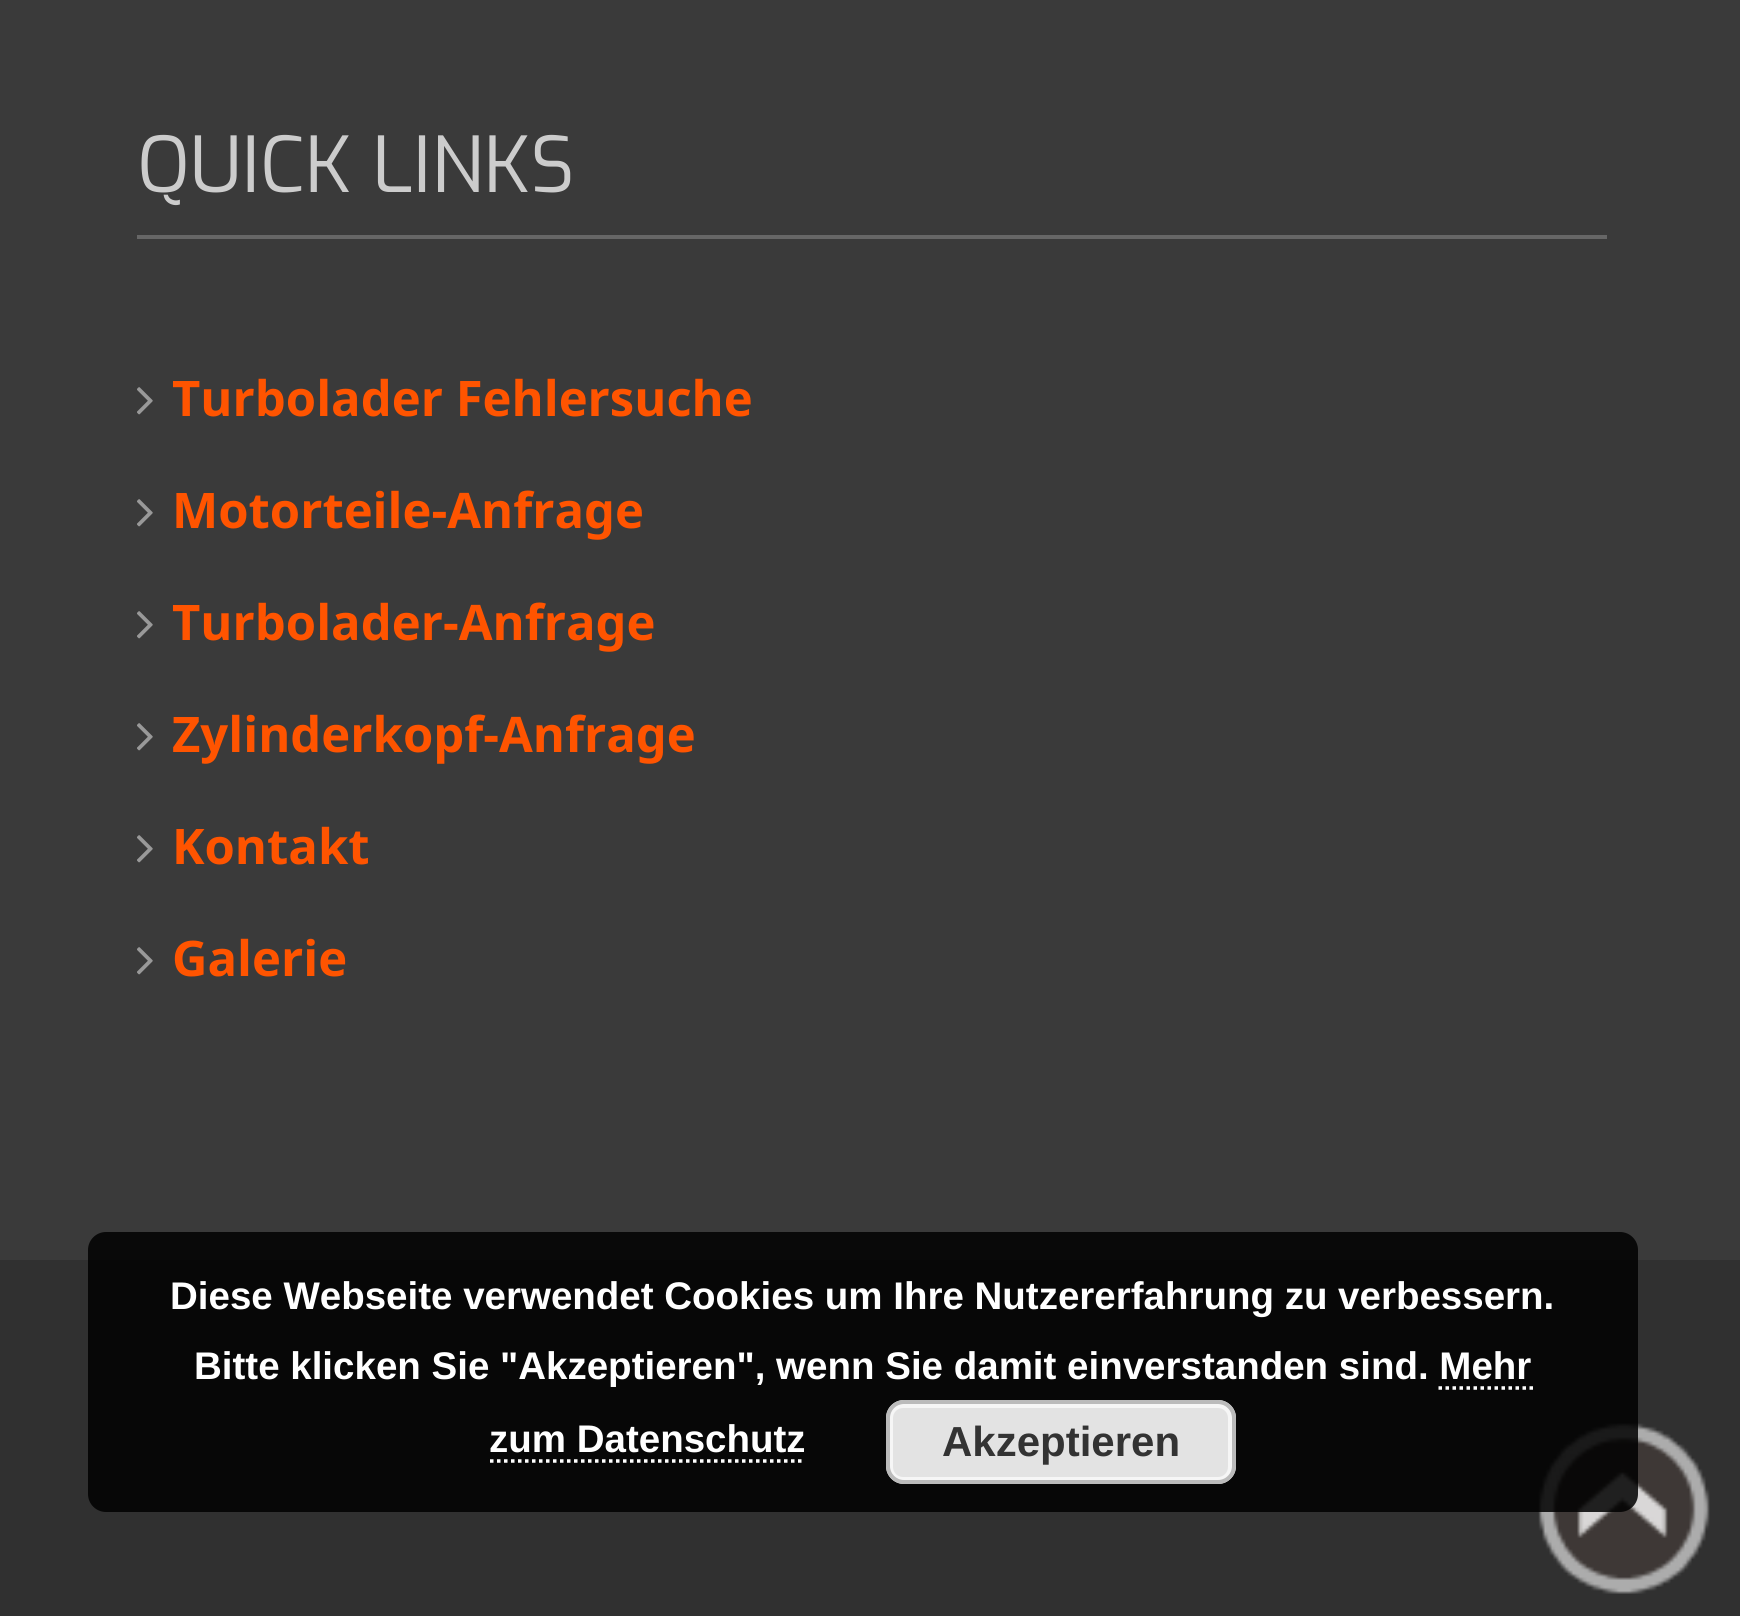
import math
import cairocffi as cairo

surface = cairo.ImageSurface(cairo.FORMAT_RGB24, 1740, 1616)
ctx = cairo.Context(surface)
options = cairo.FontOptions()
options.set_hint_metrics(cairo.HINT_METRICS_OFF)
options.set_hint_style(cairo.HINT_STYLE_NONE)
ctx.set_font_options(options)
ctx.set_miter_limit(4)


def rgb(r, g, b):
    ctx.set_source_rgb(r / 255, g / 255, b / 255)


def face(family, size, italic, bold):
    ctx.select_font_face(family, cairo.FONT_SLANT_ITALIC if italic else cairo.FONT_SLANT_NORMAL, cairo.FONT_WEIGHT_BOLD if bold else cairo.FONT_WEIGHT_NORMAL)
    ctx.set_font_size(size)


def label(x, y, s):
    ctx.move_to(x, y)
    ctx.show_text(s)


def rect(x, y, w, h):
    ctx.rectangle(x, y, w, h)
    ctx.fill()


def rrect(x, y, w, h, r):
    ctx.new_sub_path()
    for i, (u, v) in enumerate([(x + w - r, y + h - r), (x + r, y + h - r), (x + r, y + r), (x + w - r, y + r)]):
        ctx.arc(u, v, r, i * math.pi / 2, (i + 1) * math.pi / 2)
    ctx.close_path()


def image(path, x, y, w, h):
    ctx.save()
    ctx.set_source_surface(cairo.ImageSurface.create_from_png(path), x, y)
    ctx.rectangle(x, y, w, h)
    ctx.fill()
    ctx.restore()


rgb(58, 58, 58)
ctx.paint()
rgb(102, 102, 102)
rect(137, 235, 1470, 4)
face('Exo', 77, 0, 0)
rgb(204, 204, 204)
label(137, 192, 'QUICK LINKS')
image('image0.png', 137, 387, 16, 28)
face('Noto Sans', 49, 0, 1)
rgb(255, 84, 0)
label(172, 416, 'Turbolader Fehlersuche')
image('image0.png', 137, 499, 16, 28)
label(172, 528, 'Motorteile-Anfrage')
image('image0.png', 137, 611, 16, 28)
label(172, 640, 'Turbolader-Anfrage')
image('image0.png', 137, 723, 16, 28)
label(172, 752, 'Zylinderkopf-Anfrage')
image('image0.png', 137, 835, 16, 28)
label(172, 864, 'Kontakt')
image('image0.png', 137, 947, 16, 28)
label(172, 976, 'Galerie')
rgb(48, 48, 48)
rect(0, 1260, 1740, 356)
image('image1.png', 1538, 1423, 172, 171)
ctx.set_source_rgba(0, 0, 0, 0.85)
rrect(88, 1232, 1550, 280, 18)
ctx.fill()
face('Liberation Sans', 38.5, 0, 1)
rgb(255, 255, 255)
label(170, 1309, 'Diese Webseite verwendet Cookies um Ihre Nutzererfahrung zu verbessern.')
label(194, 1379, 'Bitte klicken Sie "Akzeptieren", wenn Sie damit einverstanden sind. Mehr')
label(489, 1452, 'zum Datenschutz')
ctx.new_path()
ctx.move_to(1438.5, 1388)
ctx.line_to(1533, 1388)
ctx.set_line_width(3.5)
ctx.set_dash([3.5, 3.5])
ctx.stroke()
ctx.new_path()
ctx.move_to(490, 1461)
ctx.line_to(805, 1461)
ctx.stroke()
rgb(227, 227, 227)
rrect(886, 1400, 350, 84, 18)
ctx.fill()
rrect(891, 1406, 339, 73, 12)
rgb(246, 246, 246)
ctx.set_line_width(4)
ctx.set_dash([])
ctx.stroke()
rrect(888, 1402, 346, 80, 16)
rgb(187, 187, 187)
ctx.stroke()
face('Liberation Sans', 42, 0, 1)
rgb(51, 51, 51)
label(942, 1456, 'Akzeptieren')
surface.write_to_png('render.png')
